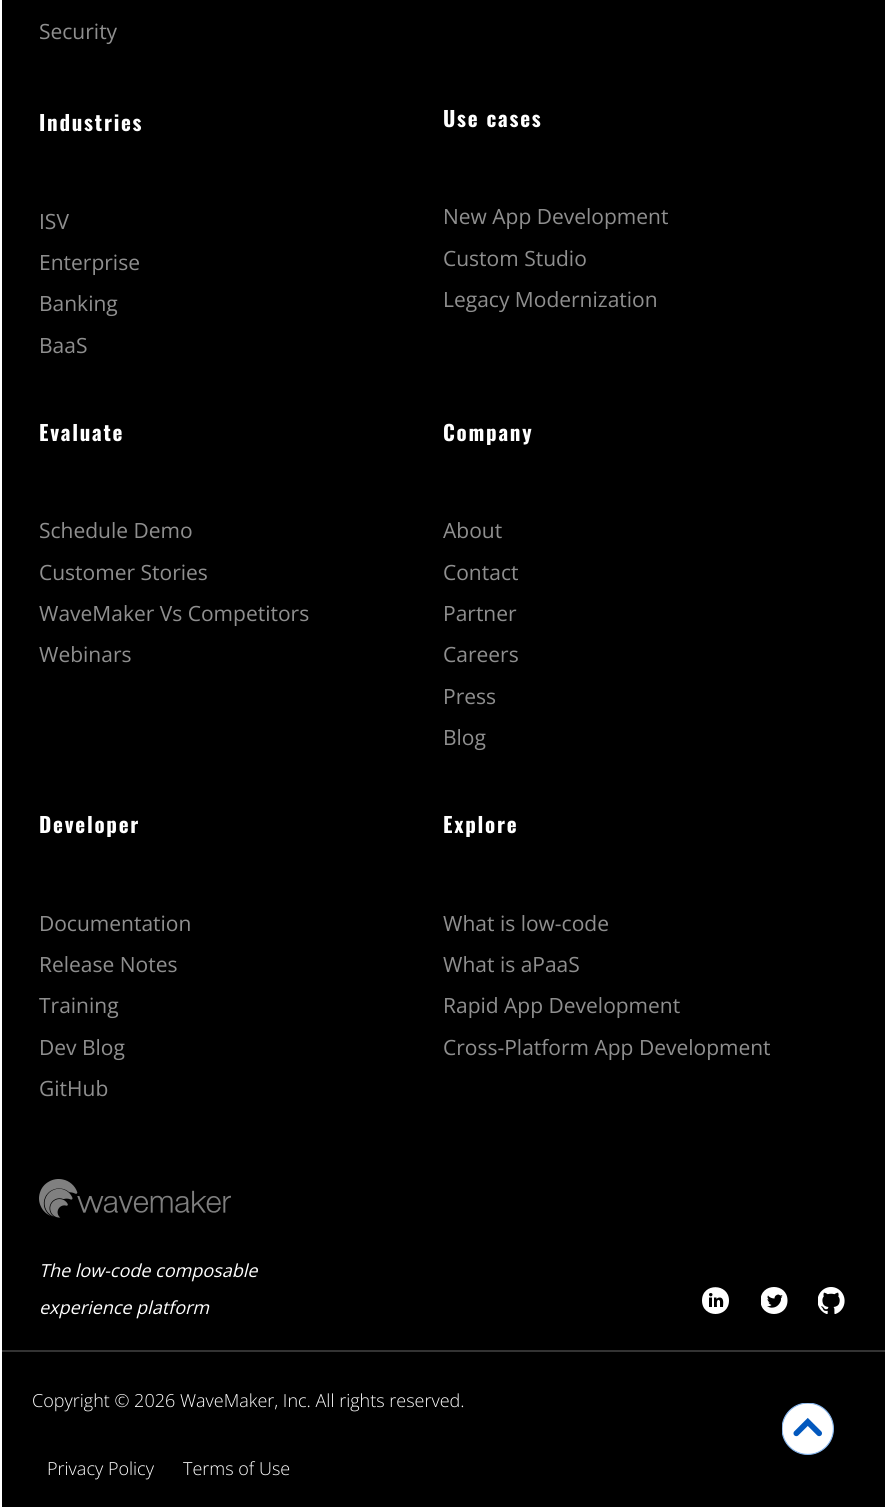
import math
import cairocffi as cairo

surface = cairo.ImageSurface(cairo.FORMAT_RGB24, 886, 1507)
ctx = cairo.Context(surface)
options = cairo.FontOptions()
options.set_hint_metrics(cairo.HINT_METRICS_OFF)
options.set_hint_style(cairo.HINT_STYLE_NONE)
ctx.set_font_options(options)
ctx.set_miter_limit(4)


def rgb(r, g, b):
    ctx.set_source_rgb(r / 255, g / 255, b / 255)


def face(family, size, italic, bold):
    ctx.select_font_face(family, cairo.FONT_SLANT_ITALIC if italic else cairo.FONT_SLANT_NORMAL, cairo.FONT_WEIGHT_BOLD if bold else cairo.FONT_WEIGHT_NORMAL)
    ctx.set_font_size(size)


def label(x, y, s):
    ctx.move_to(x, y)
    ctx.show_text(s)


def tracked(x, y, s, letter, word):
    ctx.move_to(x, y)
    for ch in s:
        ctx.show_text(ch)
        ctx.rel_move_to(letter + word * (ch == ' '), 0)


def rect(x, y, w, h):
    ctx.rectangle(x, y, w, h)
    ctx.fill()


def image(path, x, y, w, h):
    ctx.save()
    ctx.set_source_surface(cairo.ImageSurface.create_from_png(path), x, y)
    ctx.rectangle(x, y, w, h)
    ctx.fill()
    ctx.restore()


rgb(0, 0, 0)
ctx.paint()
ctx.rectangle(1, -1, 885, 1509)
rgb(255, 255, 255)
ctx.stroke()
face('Open Sans', 21, 0, 0)
rgb(143, 143, 143)
label(39, 39, 'Security')
face('Oswald', 21, 0, 1)
rgb(255, 255, 255)
tracked(39, 131, 'Industries', 1.75, 0)
face('Open Sans', 21, 0, 0)
rgb(143, 143, 143)
label(39, 229, 'ISV')
label(39, 270, 'Enterprise')
label(39, 311, 'Banking')
label(39, 353, 'BaaS')
face('Oswald', 21, 0, 1)
rgb(255, 255, 255)
tracked(443, 127, 'Use cases', 1.75, 0)
face('Open Sans', 21, 0, 0)
rgb(143, 143, 143)
label(443, 224, 'New App Development')
label(443, 266, 'Custom Studio')
label(443, 307, 'Legacy Modernization')
face('Oswald', 21, 0, 1)
rgb(255, 255, 255)
tracked(39, 441, 'Evaluate', 1.75, 0)
face('Open Sans', 21, 0, 0)
rgb(143, 143, 143)
label(39, 538, 'Schedule Demo')
label(39, 580, 'Customer Stories')
label(39, 621, 'WaveMaker Vs Competitors')
label(39, 662, 'Webinars')
face('Oswald', 21, 0, 1)
rgb(255, 255, 255)
tracked(443, 441, 'Company', 1.75, 0)
face('Open Sans', 21, 0, 0)
rgb(143, 143, 143)
label(443, 538, 'About')
label(443, 580, 'Contact')
label(443, 621, 'Partner')
label(443, 662, 'Careers')
label(443, 704, 'Press')
label(443, 745, 'Blog')
face('Oswald', 21, 0, 1)
rgb(255, 255, 255)
tracked(39, 833, 'Developer', 1.75, 0)
face('Open Sans', 21, 0, 0)
rgb(143, 143, 143)
label(39, 931, 'Documentation')
label(39, 972, 'Release Notes')
label(39, 1013, 'Training')
label(39, 1055, 'Dev Blog')
label(39, 1096, 'GitHub')
face('Oswald', 21, 0, 1)
rgb(255, 255, 255)
tracked(443, 833, 'Explore', 1.75, 0)
face('Open Sans', 21, 0, 0)
rgb(143, 143, 143)
label(443, 931, 'What is low-code')
label(443, 972, 'What is aPaaS')
label(443, 1013, 'Rapid App Development')
label(443, 1055, 'Cross-Platform App Development')
image('image0.png', 39, 1179, 192, 39)
face('Open Sans', 18, 1, 0)
rgb(255, 255, 255)
label(39, 1277, 'The low-code composable')
label(39, 1314, 'experience platform')
ctx.set_fill_rule(cairo.FILL_RULE_EVEN_ODD)
ctx.new_path()
ctx.move_to(702, 1300.5)
ctx.curve_to(702, 1282.5, 729, 1283, 729, 1300.5)
ctx.curve_to(729, 1318.5, 702, 1318.5, 702, 1300.5)
ctx.close_path()
ctx.move_to(709, 1294.5)
ctx.curve_to(709, 1297, 712.5, 1297, 712.5, 1294.5)
ctx.curve_to(712.5, 1292.5, 709, 1292.5, 709, 1294.5)
ctx.close_path()
ctx.move_to(716.5, 1299)
ctx.line_to(716.5, 1297.5)
ctx.line_to(714, 1297.5)
ctx.line_to(714, 1307)
ctx.line_to(717, 1307)
ctx.curve_to(717, 1305.5, 716, 1299, 719, 1300)
ctx.line_to(720, 1301)
ctx.line_to(720, 1307)
ctx.line_to(723, 1307)
ctx.curve_to(723, 1304, 724.5, 1297.5, 719.5, 1297.5)
ctx.curve_to(718.5, 1297.5, 717.5, 1298, 716.5, 1299)
ctx.close_path()
ctx.move_to(709, 1297.5)
ctx.line_to(709, 1307)
ctx.line_to(712, 1307)
ctx.line_to(712, 1297.5)
ctx.close_path()
ctx.fill()
ctx.save()
ctx.set_fill_rule(cairo.FILL_RULE_WINDING)
ctx.rectangle(761, 1287, 27, 27)
ctx.clip()
ctx.set_fill_rule(cairo.FILL_RULE_EVEN_ODD)
ctx.new_path()
ctx.move_to(760.5, 1300.5)
ctx.curve_to(760.5, 1282.5, 787.5, 1282.5, 787.5, 1300.5)
ctx.curve_to(787.5, 1318.5, 760.5, 1318.5, 760.5, 1300.5)
ctx.close_path()
ctx.move_to(774.5, 1298.5)
ctx.curve_to(772, 1298.5, 769.5, 1297.5, 768, 1295.5)
ctx.curve_to(767, 1297, 767.5, 1298.5, 769, 1299.5)
ctx.line_to(767.5, 1299)
ctx.curve_to(767.5, 1300.5, 768.5, 1302, 770, 1302.5)
ctx.line_to(768.5, 1302.5)
ctx.curve_to(769, 1304, 770.5, 1304.5, 771.5, 1305)
ctx.curve_to(770.5, 1306, 768.5, 1306.5, 767, 1306)
ctx.curve_to(769, 1307.5, 771, 1308, 773.5, 1307.5)
ctx.curve_to(777, 1307, 780, 1304, 781, 1300)
ctx.curve_to(781, 1298.5, 780.5, 1298.5, 782, 1297)
ctx.line_to(782.5, 1296.5)
ctx.line_to(781, 1297)
ctx.curve_to(781.5, 1296.5, 782, 1296, 782.5, 1295)
ctx.line_to(780.5, 1295.5)
ctx.line_to(778.5, 1294.5)
ctx.curve_to(776.5, 1294.5, 774.5, 1296, 774.5, 1298.5)
ctx.close_path()
ctx.fill()
ctx.restore()
image('image1.png', 818, 1287, 27, 27)
rgb(51, 51, 51)
rect(2, 1350, 883, 2)
face('Open Sans Light', 18, 0, 0)
rgb(255, 255, 255)
label(32, 1407, 'Copyright © 2026 WaveMaker, Inc. All rights reserved.')
label(47, 1475, 'Privacy Policy')
label(183, 1475, 'Terms of Use')
image('image2.png', 782, 1403, 52, 52)
surface.write_to_png('render.png')
